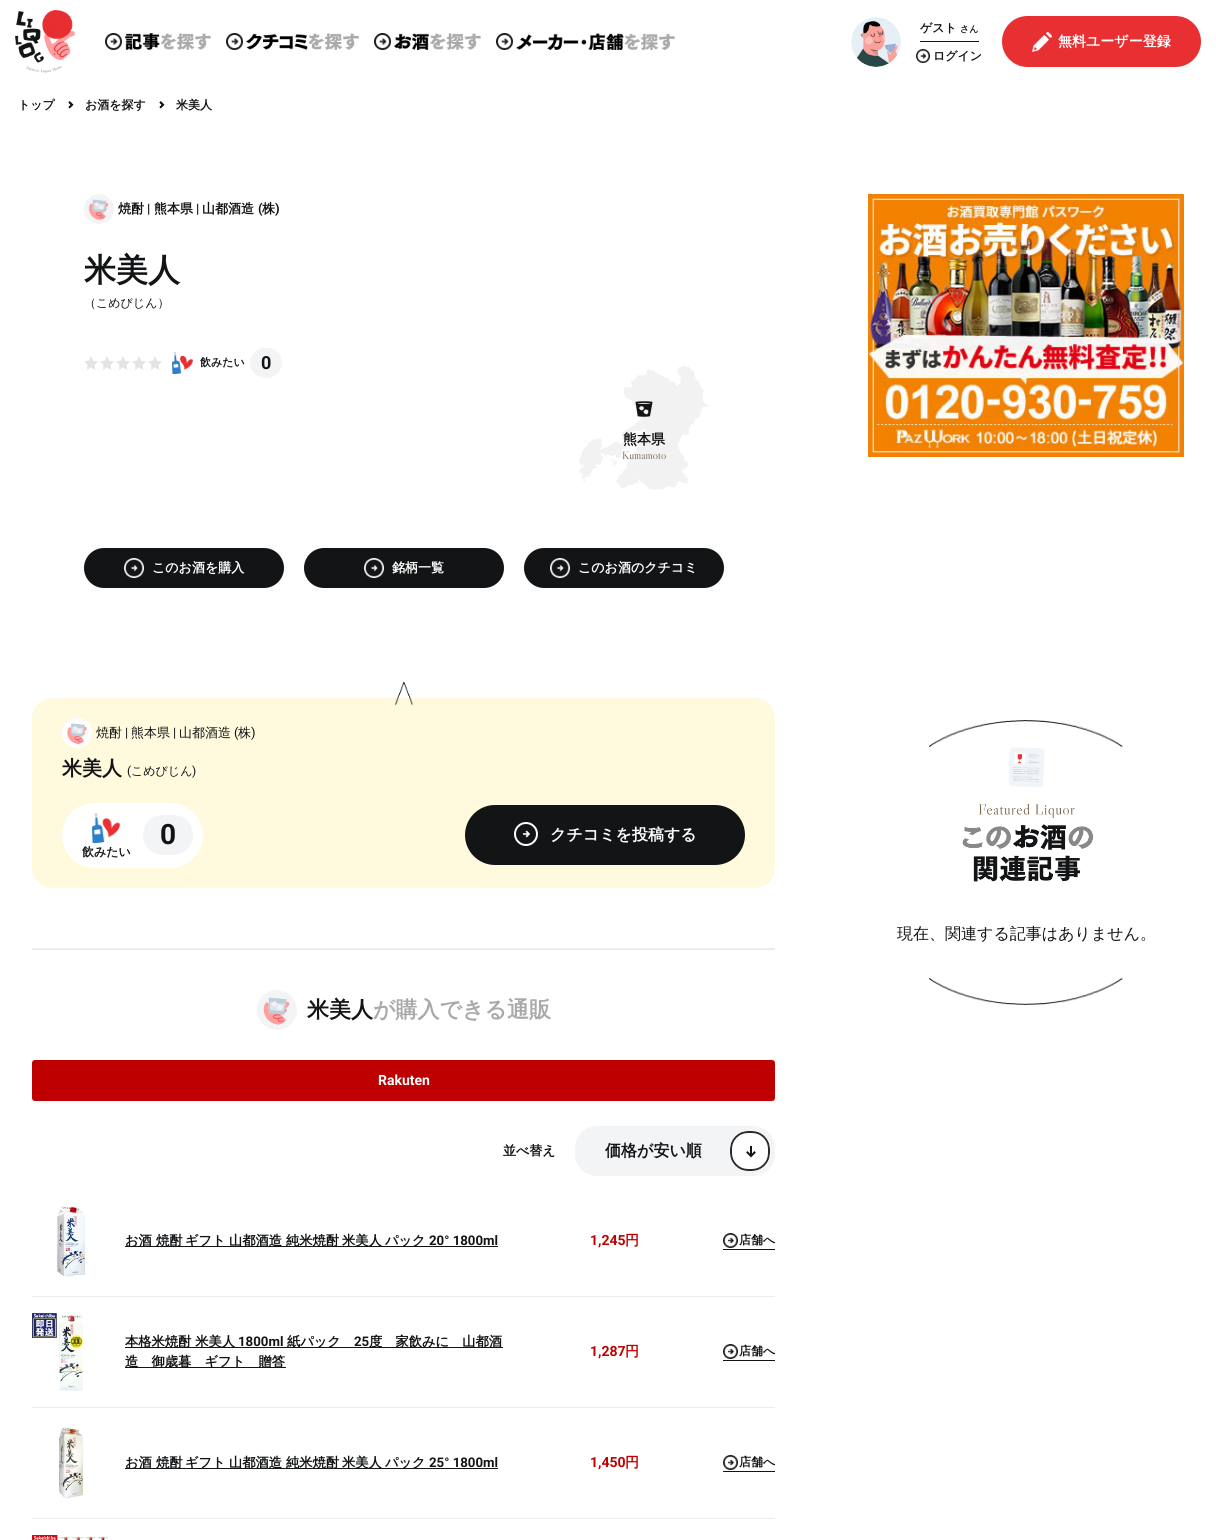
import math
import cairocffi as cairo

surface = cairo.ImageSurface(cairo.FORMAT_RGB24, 1216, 1540)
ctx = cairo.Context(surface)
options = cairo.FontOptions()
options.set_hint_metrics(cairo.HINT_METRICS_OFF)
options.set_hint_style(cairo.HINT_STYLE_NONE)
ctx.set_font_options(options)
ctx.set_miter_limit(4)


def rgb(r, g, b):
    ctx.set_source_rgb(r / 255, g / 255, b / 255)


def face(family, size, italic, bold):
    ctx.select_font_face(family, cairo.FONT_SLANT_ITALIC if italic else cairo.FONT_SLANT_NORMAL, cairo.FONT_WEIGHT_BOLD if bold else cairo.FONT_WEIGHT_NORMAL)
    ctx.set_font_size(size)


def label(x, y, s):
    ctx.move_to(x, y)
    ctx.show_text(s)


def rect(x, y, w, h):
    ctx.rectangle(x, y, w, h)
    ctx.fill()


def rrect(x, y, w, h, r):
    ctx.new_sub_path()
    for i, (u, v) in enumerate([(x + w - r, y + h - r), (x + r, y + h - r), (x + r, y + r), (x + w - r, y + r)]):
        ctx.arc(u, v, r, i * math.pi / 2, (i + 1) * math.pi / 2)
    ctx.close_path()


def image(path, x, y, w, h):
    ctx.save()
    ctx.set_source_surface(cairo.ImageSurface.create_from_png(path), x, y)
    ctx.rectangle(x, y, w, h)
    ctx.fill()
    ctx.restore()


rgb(255, 255, 255)
ctx.paint()
image('image0.png', 15, 10, 60, 63)
image('image1.png', 105, 33, 17, 17)
image('image2.png', 125, 33, 86, 17)
image('image1.png', 226, 33, 17, 17)
image('image3.png', 246, 33, 113, 17)
image('image1.png', 374, 33, 17, 17)
image('image4.png', 394, 33, 87, 17)
image('image5.png', 496, 33, 17, 17)
image('image6.png', 516, 33, 159, 17)
image('image7.png', 851, 17, 50, 50)
rgb(18, 20, 22)
rect(920, 41, 59, 1)
face('WenQuanYi Zen Hei', 12, 0, 1)
label(920, 32, 'ゲスト')
face('WenQuanYi Zen Hei', 9, 0, 1)
label(960, 32, 'さん')
image('image8.png', 916, 49, 14, 14)
face('WenQuanYi Zen Hei', 12, 0, 1)
label(933, 60, 'ログイン')
rgb(232, 47, 50)
rrect(1002, 16, 199, 51, 25.5)
ctx.fill()
image('image9.png', 1032, 32, 20, 20)
face('WenQuanYi Zen Hei', 14, 0, 1)
rgb(255, 255, 255)
label(1058, 46, '無料ユーザー登録')
face('WenQuanYi Zen Hei', 12, 0, 1)
rgb(18, 20, 22)
label(18, 109, 'トップ')
image('image10.png', 68, 101, 6, 8)
label(85, 109, 'お酒を探す')
image('image10.png', 159, 101, 6, 8)
label(176, 109, '米美人')
image('image11.png', 84, 194, 30, 30)
face('WenQuanYi Zen Hei', 13, 0, 1)
label(118, 213, '焼酎')
face('Roboto', 13, 0, 1)
label(147, 213, '|')
face('WenQuanYi Zen Hei', 13, 0, 1)
label(154, 213, '熊本県')
face('Roboto', 13, 0, 1)
label(196, 213, '|')
face('WenQuanYi Zen Hei', 13, 0, 1)
label(202, 213, '山都酒造')
face('Roboto', 13, 0, 1)
label(258, 213, '(')
face('WenQuanYi Zen Hei', 13, 0, 1)
label(262, 213, '株')
face('Roboto', 13, 0, 1)
label(275, 213, ')')
face('WenQuanYi Zen Hei', 32, 0, 1)
label(84, 281, '米美人')
face('WenQuanYi Zen Hei Medium', 12, 0, 0)
label(84, 307, '（こめびじん）')
image('image12.png', 84, 356, 14, 14)
image('image12.png', 100, 356, 14, 14)
image('image12.png', 116, 356, 14, 14)
image('image13.png', 132, 356, 14, 14)
image('image13.png', 148, 356, 14, 14)
image('image14.png', 172, 352, 21, 22)
face('WenQuanYi Zen Hei', 11, 0, 1)
label(200, 366, '飲みたい')
rgb(242, 244, 246)
rrect(250, 348, 32, 30, 15)
ctx.fill()
face('Roboto', 18, 0, 1)
rgb(18, 20, 22)
label(261, 369, '0')
image('image15.png', 579, 366, 130, 124)
image('image16.png', 635, 401, 18, 16)
face('WenQuanYi Zen Hei', 14, 0, 1)
label(623, 444, '熊本県')
face('Libre Caslon Display', 11, 0, 0)
rgb(120, 100, 80)
label(622, 459, 'Kumamoto')
rgb(18, 20, 22)
rrect(84, 548, 200, 40, 20)
ctx.fill()
image('image17.png', 124, 558, 20, 20)
face('WenQuanYi Zen Hei', 13, 0, 1)
rgb(255, 255, 255)
label(152, 572, 'このお酒を購入')
rgb(18, 20, 22)
rrect(304, 548, 200, 40, 20)
ctx.fill()
image('image17.png', 364, 558, 20, 20)
rgb(255, 255, 255)
label(392, 572, '銘柄一覧')
rgb(18, 20, 22)
rrect(524, 548, 200, 40, 20)
ctx.fill()
image('image17.png', 550, 558, 20, 20)
rgb(255, 255, 255)
label(578, 572, 'このお酒のクチコミ')
rgb(255, 250, 222)
rrect(32, 698, 743, 190, 20)
ctx.fill()
image('image18.png', 395, 681, 18, 25)
image('image19.png', 62, 718, 30, 30)
face('WenQuanYi Zen Hei Medium', 13, 0, 0)
rgb(18, 20, 22)
label(96, 737, '焼酎')
face('Roboto', 13, 0, 0)
label(125, 737, '|')
face('WenQuanYi Zen Hei Medium', 13, 0, 0)
label(131, 737, '熊本県')
face('Roboto', 13, 0, 0)
label(173, 737, '|')
face('WenQuanYi Zen Hei Medium', 13, 0, 0)
label(179, 737, '山都酒造')
face('Roboto', 13, 0, 0)
label(234, 737, '(')
face('WenQuanYi Zen Hei Medium', 13, 0, 0)
label(238, 737, '株')
face('Roboto', 13, 0, 0)
label(251, 737, ')')
face('WenQuanYi Zen Hei', 20, 0, 1)
label(62, 775, '米美人')
face('Roboto', 12, 0, 0)
label(127, 775, '(')
face('WenQuanYi Zen Hei Medium', 12, 0, 0)
label(131, 775, 'こめびじん')
face('Roboto', 12, 0, 0)
label(192, 775, ')')
rgb(255, 255, 255)
rrect(62, 803, 141, 65, 32.5)
ctx.fill()
rgb(242, 244, 246)
rrect(143, 815, 50, 40, 20)
ctx.fill()
face('Roboto', 28, 0, 1)
rgb(18, 20, 22)
label(160, 844, '0')
image('image20.png', 92, 813, 28, 30)
face('WenQuanYi Zen Hei', 12, 0, 1)
label(82, 856, '飲みたい')
rrect(465, 805, 280, 60, 30)
ctx.fill()
image('image21.png', 514, 822, 24, 24)
face('WenQuanYi Zen Hei', 16, 0, 1)
rgb(255, 255, 255)
label(550, 840, 'クチコミを投稿する')
rgb(236, 236, 236)
rect(32, 948, 743, 2)
image('image22.png', 257, 990, 40, 40)
face('WenQuanYi Zen Hei', 22, 0, 1)
rgb(18, 20, 22)
label(307, 1017, '米美人')
rgb(169, 169, 169)
label(373, 1017, 'が購入できる通販')
rgb(191, 0, 0)
rrect(32, 1060, 743, 41, 3)
ctx.fill()
face('Roboto', 14, 0, 1)
rgb(255, 255, 255)
label(378, 1085, 'Rakuten')
face('WenQuanYi Zen Hei', 13, 0, 1)
rgb(18, 20, 22)
label(503, 1155, '並べ替え')
rgb(242, 244, 246)
rrect(575, 1126, 200, 50, 22)
ctx.fill()
face('WenQuanYi Zen Hei', 16, 0, 1)
rgb(18, 20, 22)
label(605, 1156, '価格が安い順')
image('image23.png', 730, 1131, 40, 40)
rgb(236, 236, 236)
rect(32, 1296, 743, 1)
image('image24.png', 56, 1206, 30, 72)
rgb(18, 20, 22)
rect(125, 1246, 373, 1)
face('WenQuanYi Zen Hei', 13.25, 0, 1)
label(125, 1245, 'お酒')
label(156, 1245, '焼酎')
label(185, 1245, 'ギフト')
label(229, 1245, '山都酒造')
label(286, 1245, '純米焼酎')
label(342, 1245, '米美人')
label(385, 1245, 'パック')
face('Roboto', 13.25, 0, 1)
label(429, 1245, '20° 1800ml')
face('Roboto', 14, 0, 1)
rgb(191, 0, 0)
label(590, 1245, '1,245')
face('WenQuanYi Zen Hei', 14, 0, 1)
label(625, 1245, '円')
rgb(18, 20, 22)
rect(723, 1249, 52, 1)
image('image25.png', 723, 1233, 15, 15)
face('WenQuanYi Zen Hei', 12, 0, 1)
label(739, 1244, '店舗へ')
rgb(236, 236, 236)
rect(32, 1407, 743, 1)
image('image26.png', 32, 1313, 54, 78)
rgb(18, 20, 22)
rect(125, 1347, 378, 1)
face('WenQuanYi Zen Hei', 13.25, 0, 1)
label(125, 1346, '本格米焼酎 米美人')
face('Roboto', 13.25, 0, 1)
label(238, 1346, '1800ml')
face('WenQuanYi Zen Hei', 13.25, 0, 1)
label(287, 1346, '紙パック')
face('Roboto', 13.25, 0, 1)
label(354, 1346, '25')
face('WenQuanYi Zen Hei', 13.25, 0, 1)
label(369, 1346, '度　家飲みに　山都酒')
rect(125, 1367, 161, 1)
label(125, 1366, '造　御歳暮　ギフト　贈答')
face('Roboto', 14, 0, 1)
rgb(191, 0, 0)
label(590, 1356, '1,287')
face('WenQuanYi Zen Hei', 14, 0, 1)
label(625, 1356, '円')
rgb(18, 20, 22)
rect(723, 1360, 52, 1)
image('image25.png', 723, 1344, 15, 15)
face('WenQuanYi Zen Hei', 12, 0, 1)
label(739, 1355, '店舗へ')
rgb(236, 236, 236)
rect(32, 1518, 743, 1)
image('image27.png', 59, 1427, 25, 72)
rgb(18, 20, 22)
rect(125, 1468, 373, 1)
face('WenQuanYi Zen Hei', 13.25, 0, 1)
label(125, 1467, 'お酒')
label(156, 1467, '焼酎')
label(185, 1467, 'ギフト')
label(229, 1467, '山都酒造')
label(286, 1467, '純米焼酎')
label(342, 1467, '米美人')
label(385, 1467, 'パック')
face('Roboto', 13.25, 0, 1)
label(429, 1467, '25° 1800ml')
face('Roboto', 14, 0, 1)
rgb(191, 0, 0)
label(590, 1467, '1,450')
face('WenQuanYi Zen Hei', 14, 0, 1)
label(625, 1467, '円')
rgb(18, 20, 22)
rect(723, 1471, 52, 1)
image('image25.png', 723, 1455, 15, 15)
face('WenQuanYi Zen Hei', 12, 0, 1)
label(739, 1466, '店舗へ')
image('image28.png', 32, 1535, 78, 5)
image('image29.png', 868, 194, 316, 263)
image('image30.png', 929, 720, 194, 27)
image('image31.png', 962, 747, 132, 135)
face('WenQuanYi Zen Hei Medium', 16, 0, 0)
label(897, 939, '現在、関連する記事はありません。')
image('image32.png', 929, 978, 194, 27)
surface.write_to_png('render.png')
